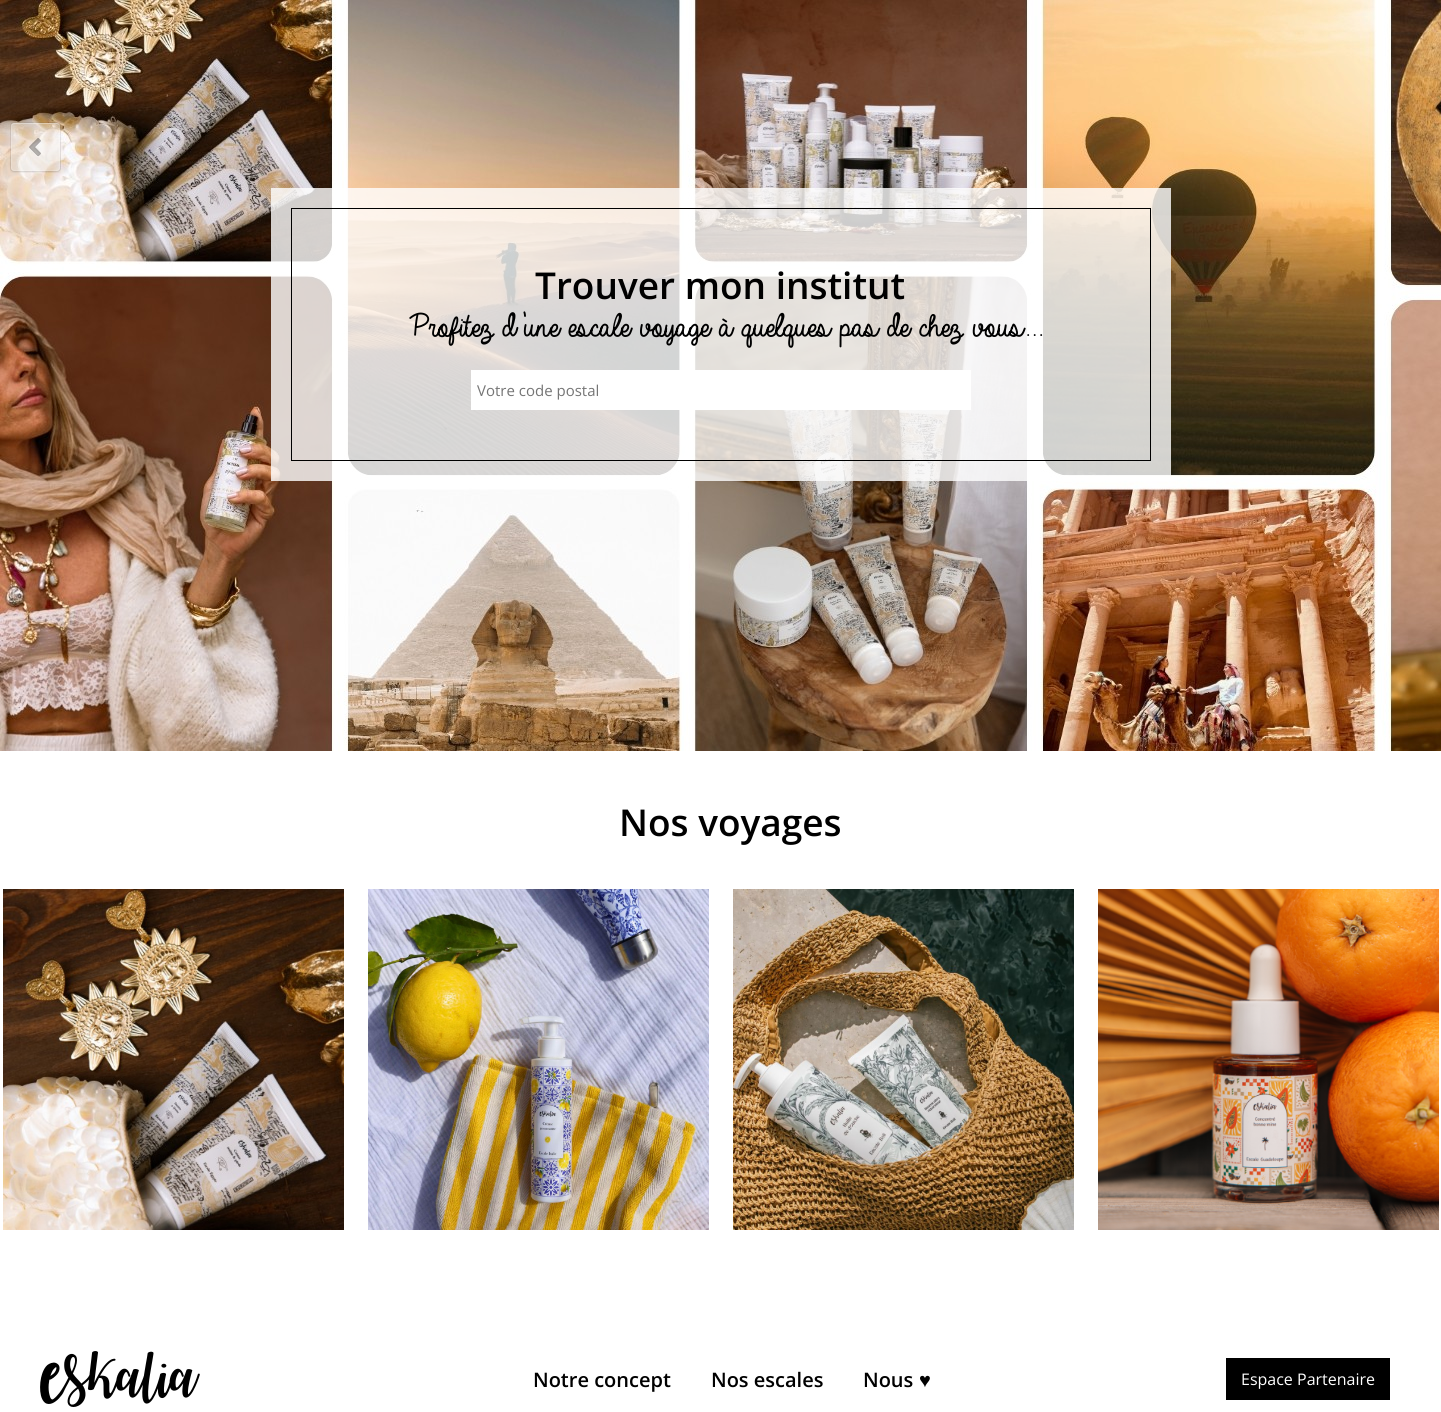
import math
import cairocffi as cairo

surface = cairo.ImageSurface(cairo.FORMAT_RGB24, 1441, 1412)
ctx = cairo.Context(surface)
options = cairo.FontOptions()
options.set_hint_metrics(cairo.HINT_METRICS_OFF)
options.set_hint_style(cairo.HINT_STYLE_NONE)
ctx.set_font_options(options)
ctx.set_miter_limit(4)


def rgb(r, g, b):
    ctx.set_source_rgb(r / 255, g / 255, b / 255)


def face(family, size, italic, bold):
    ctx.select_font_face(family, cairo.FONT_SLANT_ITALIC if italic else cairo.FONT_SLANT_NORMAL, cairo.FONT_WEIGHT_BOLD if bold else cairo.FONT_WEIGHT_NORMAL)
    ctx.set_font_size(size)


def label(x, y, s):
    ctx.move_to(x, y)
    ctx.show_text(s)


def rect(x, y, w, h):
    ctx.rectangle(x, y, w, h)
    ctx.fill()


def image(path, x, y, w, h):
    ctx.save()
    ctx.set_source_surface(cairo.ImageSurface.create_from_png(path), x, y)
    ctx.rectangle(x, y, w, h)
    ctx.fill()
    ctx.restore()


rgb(255, 255, 255)
ctx.paint()
image('image0.png', 0, 0, 1441, 751)
image('image1.png', 10, 122, 51, 51)
ctx.set_source_rgba(1, 1, 1, 0.8)
rect(271, 188, 900, 293)
ctx.rectangle(291.5, 208.5, 859, 252)
rgb(0, 0, 0)
ctx.set_line_width(1)
ctx.stroke()
face('Open Sans SemiBold', 37, 0, 0)
label(535, 299, 'Trouver mon institut')
face('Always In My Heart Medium', 35, 0, 0)
label(404, 336, 'Profitez d’une escale voyage à quelques pas de chez vous...')
rgb(255, 255, 255)
rect(471, 370, 500, 40)
face('Open Sans', 15, 0, 0)
rgb(117, 117, 117)
label(477, 396, 'Votre code postal')
face('Open Sans SemiBold', 37, 0, 0)
rgb(0, 0, 0)
label(619, 836, 'Nos voyages')
image('image2.png', 3, 889, 341, 341)
image('image3.png', 368, 889, 341, 341)
image('image4.png', 733, 889, 341, 341)
image('image5.png', 1098, 889, 341, 341)
image('image6.png', 40, 1351, 160, 56)
face('Open Sans SemiBold', 20, 0, 0)
label(533, 1387, 'Notre concept')
label(711, 1387, 'Nos escales')
label(863, 1387, 'Nous')
face('Liberation Serif', 20, 0, 0)
label(919, 1387, '♥')
rect(1226, 1358, 164, 42)
face('Open Sans', 16, 0, 0)
rgb(255, 255, 255)
label(1241, 1385, 'Espace Partenaire')
surface.write_to_png('render.png')
